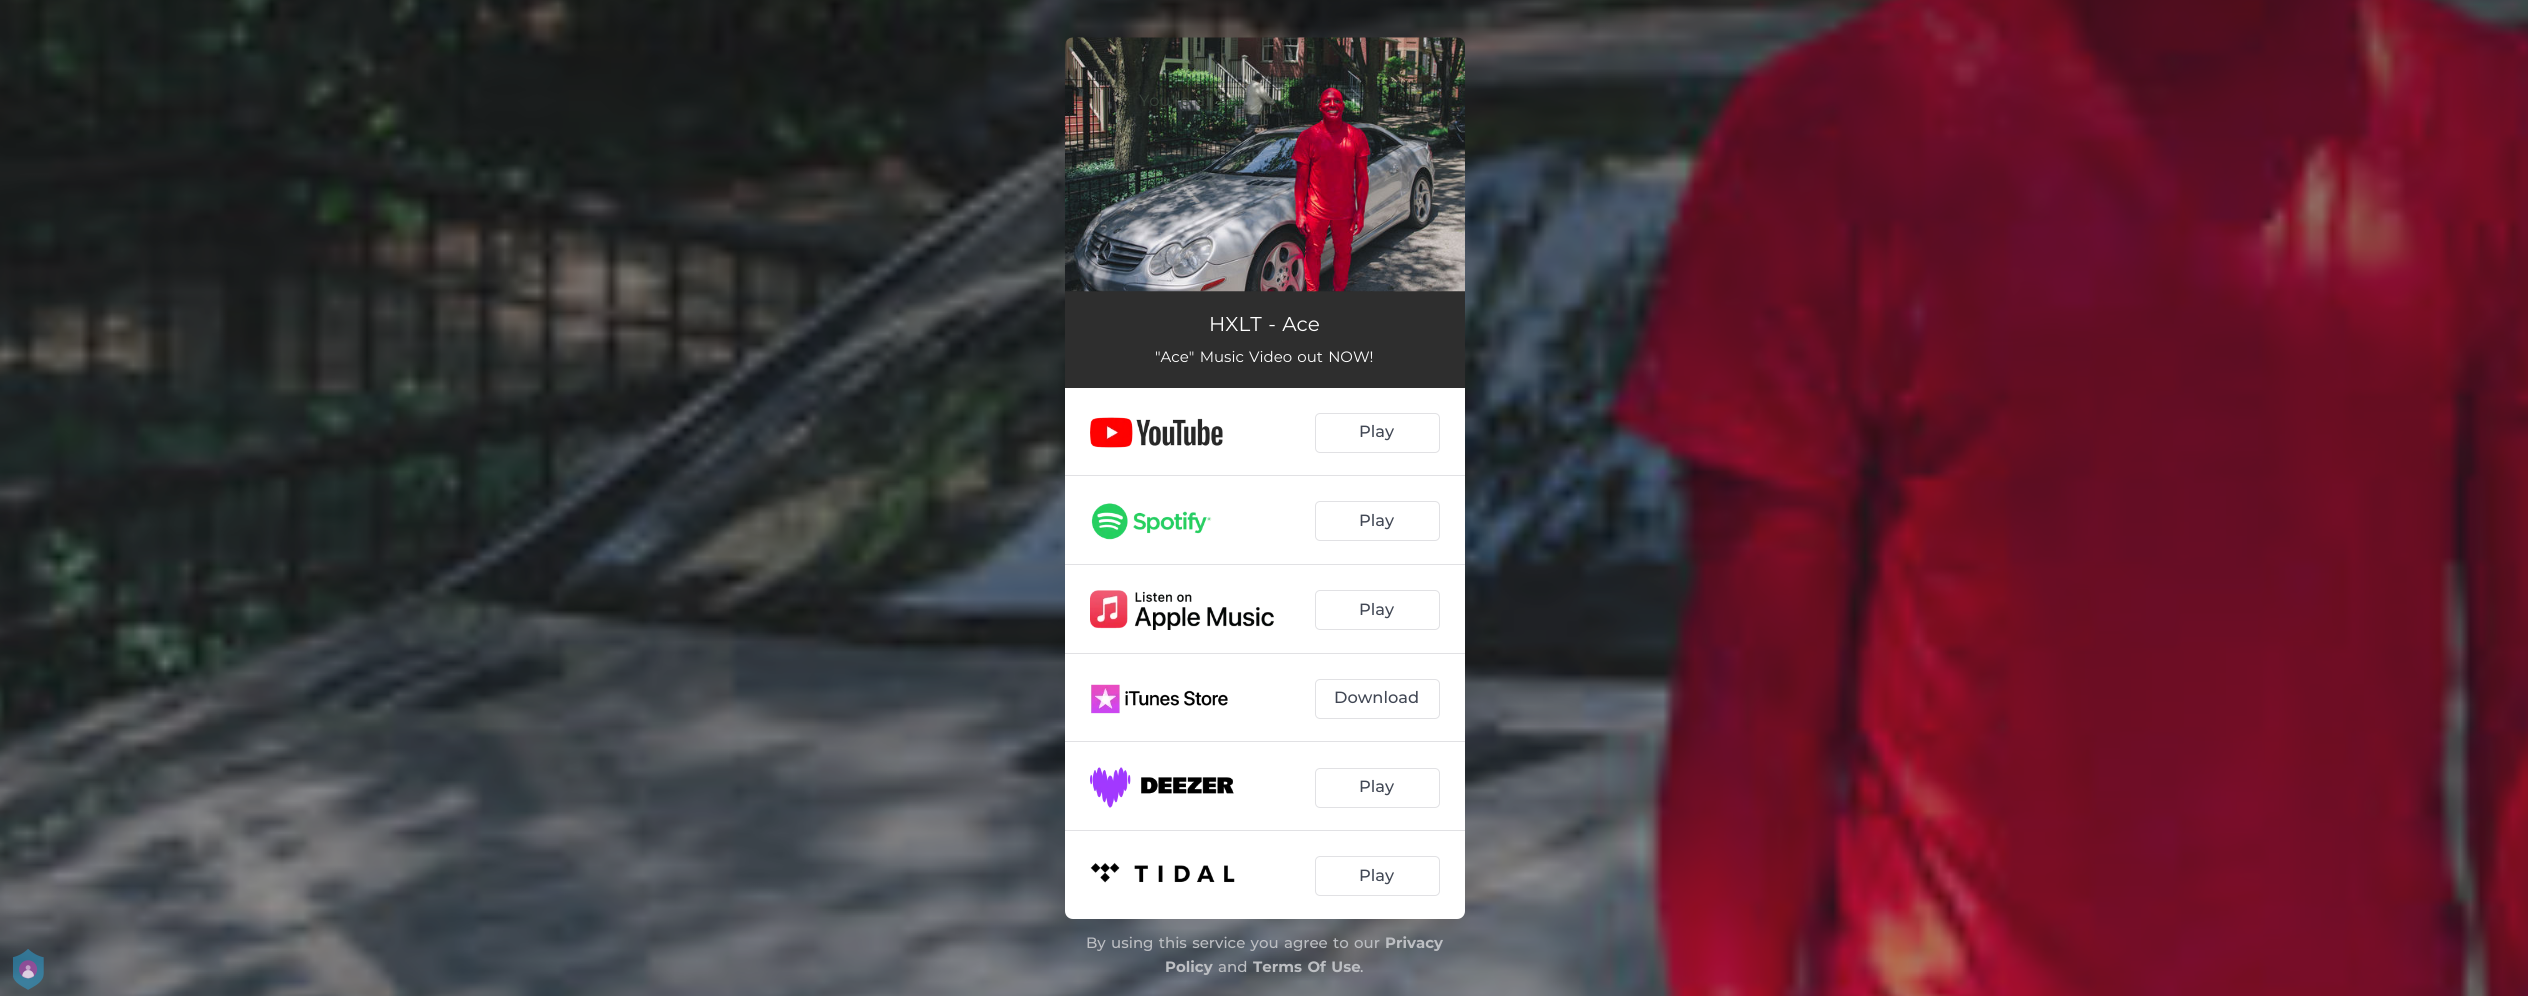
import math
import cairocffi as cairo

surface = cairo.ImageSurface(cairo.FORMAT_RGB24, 2528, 996)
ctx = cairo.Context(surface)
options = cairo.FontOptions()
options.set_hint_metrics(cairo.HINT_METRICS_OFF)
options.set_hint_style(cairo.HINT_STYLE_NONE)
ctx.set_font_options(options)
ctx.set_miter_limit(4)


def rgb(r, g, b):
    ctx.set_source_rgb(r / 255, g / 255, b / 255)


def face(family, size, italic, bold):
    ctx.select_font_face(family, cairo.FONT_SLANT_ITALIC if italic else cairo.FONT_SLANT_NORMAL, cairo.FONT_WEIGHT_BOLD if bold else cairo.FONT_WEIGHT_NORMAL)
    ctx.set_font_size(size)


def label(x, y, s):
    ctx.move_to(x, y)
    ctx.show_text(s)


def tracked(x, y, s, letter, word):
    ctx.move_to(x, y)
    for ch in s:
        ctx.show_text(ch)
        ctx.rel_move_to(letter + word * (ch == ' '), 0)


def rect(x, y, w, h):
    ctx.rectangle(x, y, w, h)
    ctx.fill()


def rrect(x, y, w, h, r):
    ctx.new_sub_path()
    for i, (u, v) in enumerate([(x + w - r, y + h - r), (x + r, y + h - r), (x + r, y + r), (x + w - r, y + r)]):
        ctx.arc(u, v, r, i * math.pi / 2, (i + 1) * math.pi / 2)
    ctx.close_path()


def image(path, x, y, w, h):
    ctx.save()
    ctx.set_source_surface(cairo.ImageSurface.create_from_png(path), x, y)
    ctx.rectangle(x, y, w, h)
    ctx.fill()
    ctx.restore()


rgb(255, 255, 255)
ctx.paint()
image('image1.png', 0, 0, 2528, 996)
image('image0.png', 13, 949, 31, 41)
rgb(46, 46, 46)
rect(1065, 291, 400, 97)
image('image2.png', 1065, 37, 400, 255)
face('Montserrat', 16.25, 0, 0)
rgb(58, 69, 60)
tracked(1139, 106, 'You\'re all set!', 0, 1.25)
face('Montserrat', 20, 0, 0)
rgb(255, 255, 255)
tracked(1209, 331, 'HXLT - Ace', 0, 1.25)
face('Montserrat', 15, 0, 0)
tracked(1155, 362, '"Ace" Music Video out NOW!', 0, 1.25)
ctx.new_path()
ctx.move_to(1065, 388)
ctx.line_to(1465, 388)
ctx.line_to(1465, 911)
ctx.curve_to(1465, 915.5, 1461.5, 919, 1457, 919)
ctx.line_to(1073, 919)
ctx.curve_to(1068.5, 919, 1065, 915.5, 1065, 911)
ctx.close_path()
ctx.fill()
rgb(225, 225, 228)
rect(1065, 475, 400, 1)
image('image3.png', 1090, 417, 133, 31)
rrect(1315.5, 413.5, 124, 39, 4.5)
ctx.set_line_width(1)
ctx.stroke()
face('Montserrat Medium', 16.25, 0, 0)
rgb(65, 71, 84)
label(1359, 437, 'Play')
rgb(225, 225, 228)
rect(1065, 564, 400, 1)
image('image4.png', 1091, 503, 121, 37)
rrect(1315.5, 501.5, 124, 39, 4.5)
ctx.stroke()
rgb(65, 71, 84)
label(1359, 526, 'Play')
rgb(225, 225, 228)
rect(1065, 653, 400, 1)
image('image5.png', 1090, 590, 184, 40)
rrect(1315.5, 590.5, 124, 39, 4.5)
ctx.stroke()
rgb(65, 71, 84)
label(1359, 615, 'Play')
rgb(225, 225, 228)
rect(1065, 741, 400, 1)
image('image6.png', 1091, 684, 137, 30)
rrect(1315.5, 679.5, 124, 39, 4.5)
ctx.stroke()
rgb(65, 71, 84)
label(1334, 703, 'Download')
rgb(225, 225, 228)
rect(1065, 830, 400, 1)
image('image7.png', 1090, 767, 144, 41)
rrect(1315.5, 768.5, 124, 39, 4.5)
ctx.stroke()
rgb(65, 71, 84)
label(1359, 792, 'Play')
image('image8.png', 1090, 862, 145, 21)
rrect(1315.5, 856.5, 124, 39, 4.5)
rgb(225, 225, 228)
ctx.stroke()
rgb(65, 71, 84)
label(1359, 881, 'Play')
face('Montserrat Medium', 15, 0, 0)
rgb(189, 191, 195)
tracked(1086, 948, 'By using this service you agree to our', 0, 1.25)
face('Montserrat', 15, 0, 1)
label(1385, 948, 'Privacy')
label(1165, 972, 'Policy')
face('Montserrat Medium', 15, 0, 0)
label(1218, 972, 'and')
face('Montserrat', 15, 0, 1)
tracked(1253, 972, 'Terms Of Use', 0, 1.25)
face('Montserrat Medium', 15, 0, 0)
rgb(196, 197, 201)
label(1360, 972, '.')
surface.write_to_png('render.png')
